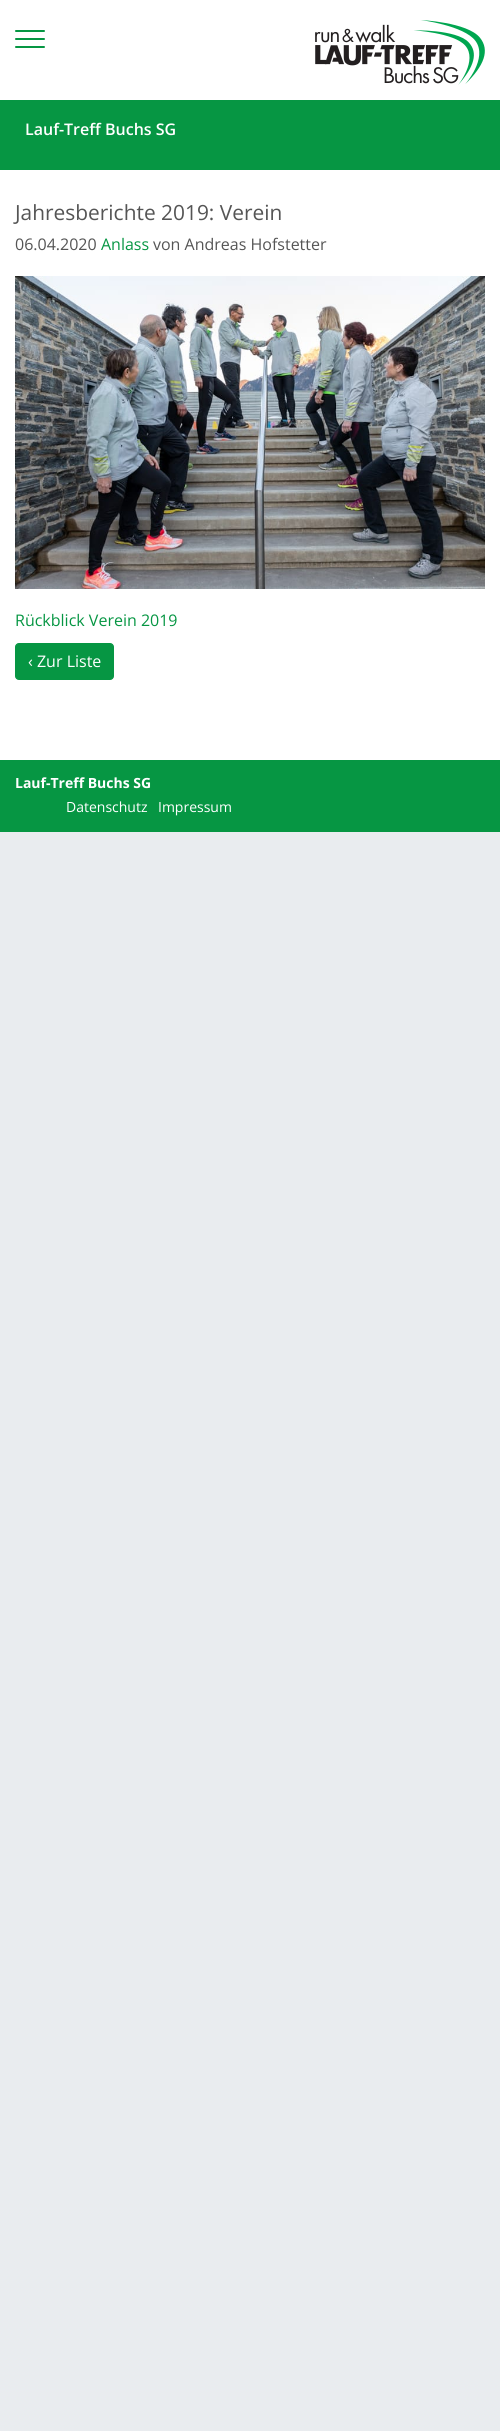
import math
import cairocffi as cairo

surface = cairo.ImageSurface(cairo.FORMAT_RGB24, 500, 2431)
ctx = cairo.Context(surface)
options = cairo.FontOptions()
options.set_hint_metrics(cairo.HINT_METRICS_OFF)
options.set_hint_style(cairo.HINT_STYLE_NONE)
ctx.set_font_options(options)
ctx.set_miter_limit(4)


def rgb(r, g, b):
    ctx.set_source_rgb(r / 255, g / 255, b / 255)


def face(family, size, italic, bold):
    ctx.select_font_face(family, cairo.FONT_SLANT_ITALIC if italic else cairo.FONT_SLANT_NORMAL, cairo.FONT_WEIGHT_BOLD if bold else cairo.FONT_WEIGHT_NORMAL)
    ctx.set_font_size(size)


def label(x, y, s):
    ctx.move_to(x, y)
    ctx.show_text(s)


def rect(x, y, w, h):
    ctx.rectangle(x, y, w, h)
    ctx.fill()


def rrect(x, y, w, h, r):
    ctx.new_sub_path()
    for i, (u, v) in enumerate([(x + w - r, y + h - r), (x + r, y + h - r), (x + r, y + r), (x + w - r, y + r)]):
        ctx.arc(u, v, r, i * math.pi / 2, (i + 1) * math.pi / 2)
    ctx.close_path()


def image(path, x, y, w, h):
    ctx.save()
    ctx.set_source_surface(cairo.ImageSurface.create_from_png(path), x, y)
    ctx.rectangle(x, y, w, h)
    ctx.fill()
    ctx.restore()


rgb(233, 236, 239)
ctx.paint()
rgb(255, 255, 255)
rect(0, 0, 500, 100)
rgb(6, 150, 67)
rrect(15, 30, 30, 2, 1)
ctx.fill()
rrect(15, 38, 30, 2, 1)
ctx.fill()
rrect(15, 46, 30, 2, 1)
ctx.fill()
image('image0.png', 315, 20, 170, 65)
rect(0, 100, 500, 70)
face('Open Sans SemiBold', 16, 0, 0)
rgb(255, 255, 255)
label(25, 135, 'Lauf-Treff Buchs SG')
rect(0, 170, 500, 590)
face('Open Sans', 20.9, 0, 0)
rgb(85, 85, 85)
label(15, 220, 'Jahresberichte 2019: Verein')
face('Open Sans', 16, 0, 0)
label(15, 250, '06.04.2020')
rgb(6, 150, 67)
label(101, 250, 'Anlass')
rgb(85, 85, 85)
label(153, 250, 'von Andreas Hofstetter')
image('image1.png', 15, 276, 470, 313)
rgb(6, 150, 67)
label(15, 626, 'Rückblick Verein 2019')
rrect(15.5, 643.5, 98, 36, 3.5)
ctx.fill_preserve()
ctx.set_line_width(1)
ctx.stroke()
rgb(255, 255, 255)
label(28, 667, '‹ Zur Liste')
rgb(6, 150, 67)
rect(0, 760, 500, 72)
face('Open Sans', 14, 0, 1)
rgb(255, 255, 255)
label(15, 788, 'Lauf-Treff Buchs SG')
face('Open Sans', 14, 0, 0)
label(66, 812, 'Datenschutz')
label(158, 812, 'Impressum')
surface.write_to_png('render.png')
